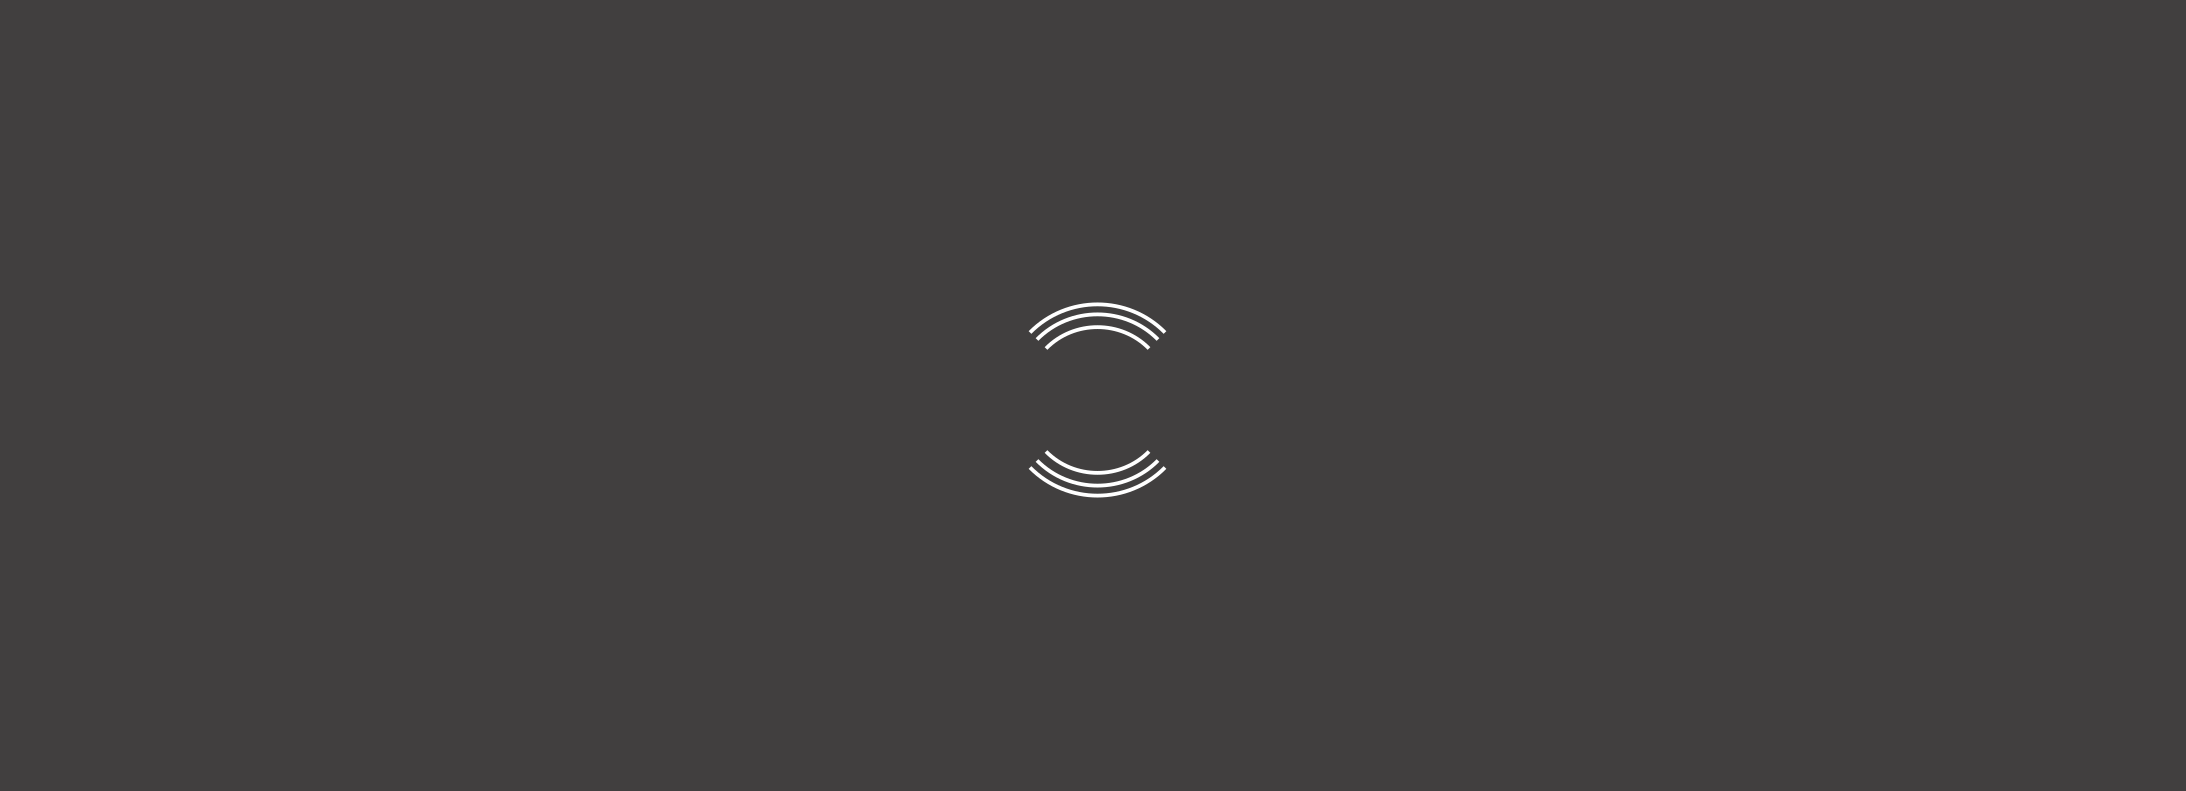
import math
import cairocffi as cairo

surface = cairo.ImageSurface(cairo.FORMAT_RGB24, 2186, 791)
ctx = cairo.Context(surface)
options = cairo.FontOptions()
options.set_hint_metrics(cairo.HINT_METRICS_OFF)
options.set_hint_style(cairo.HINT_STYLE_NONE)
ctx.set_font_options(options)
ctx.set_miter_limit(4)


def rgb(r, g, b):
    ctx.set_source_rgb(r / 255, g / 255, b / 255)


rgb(65, 63, 63)
ctx.paint()
ctx.new_path()
ctx.move_to(1030, 332.5)
ctx.curve_to(1067, 295, 1128, 295, 1165, 332.5)
rgb(255, 255, 255)
ctx.set_line_width(3.8)
ctx.stroke()
ctx.new_path()
ctx.move_to(1165, 467.5)
ctx.curve_to(1128, 505, 1067, 505, 1030, 467.5)
ctx.stroke()
ctx.new_path()
ctx.move_to(1037, 339.5)
ctx.curve_to(1070, 306, 1125, 306, 1158, 339.5)
ctx.stroke()
ctx.new_path()
ctx.move_to(1158, 460.5)
ctx.curve_to(1125, 494, 1070, 494, 1037, 460.5)
ctx.stroke()
ctx.new_path()
ctx.move_to(1046, 348.5)
ctx.curve_to(1074, 320, 1121, 320, 1149, 348.5)
ctx.stroke()
ctx.new_path()
ctx.move_to(1149, 451.5)
ctx.curve_to(1121, 480, 1074, 480, 1046, 451.5)
ctx.stroke()
surface.write_to_png('render.png')
